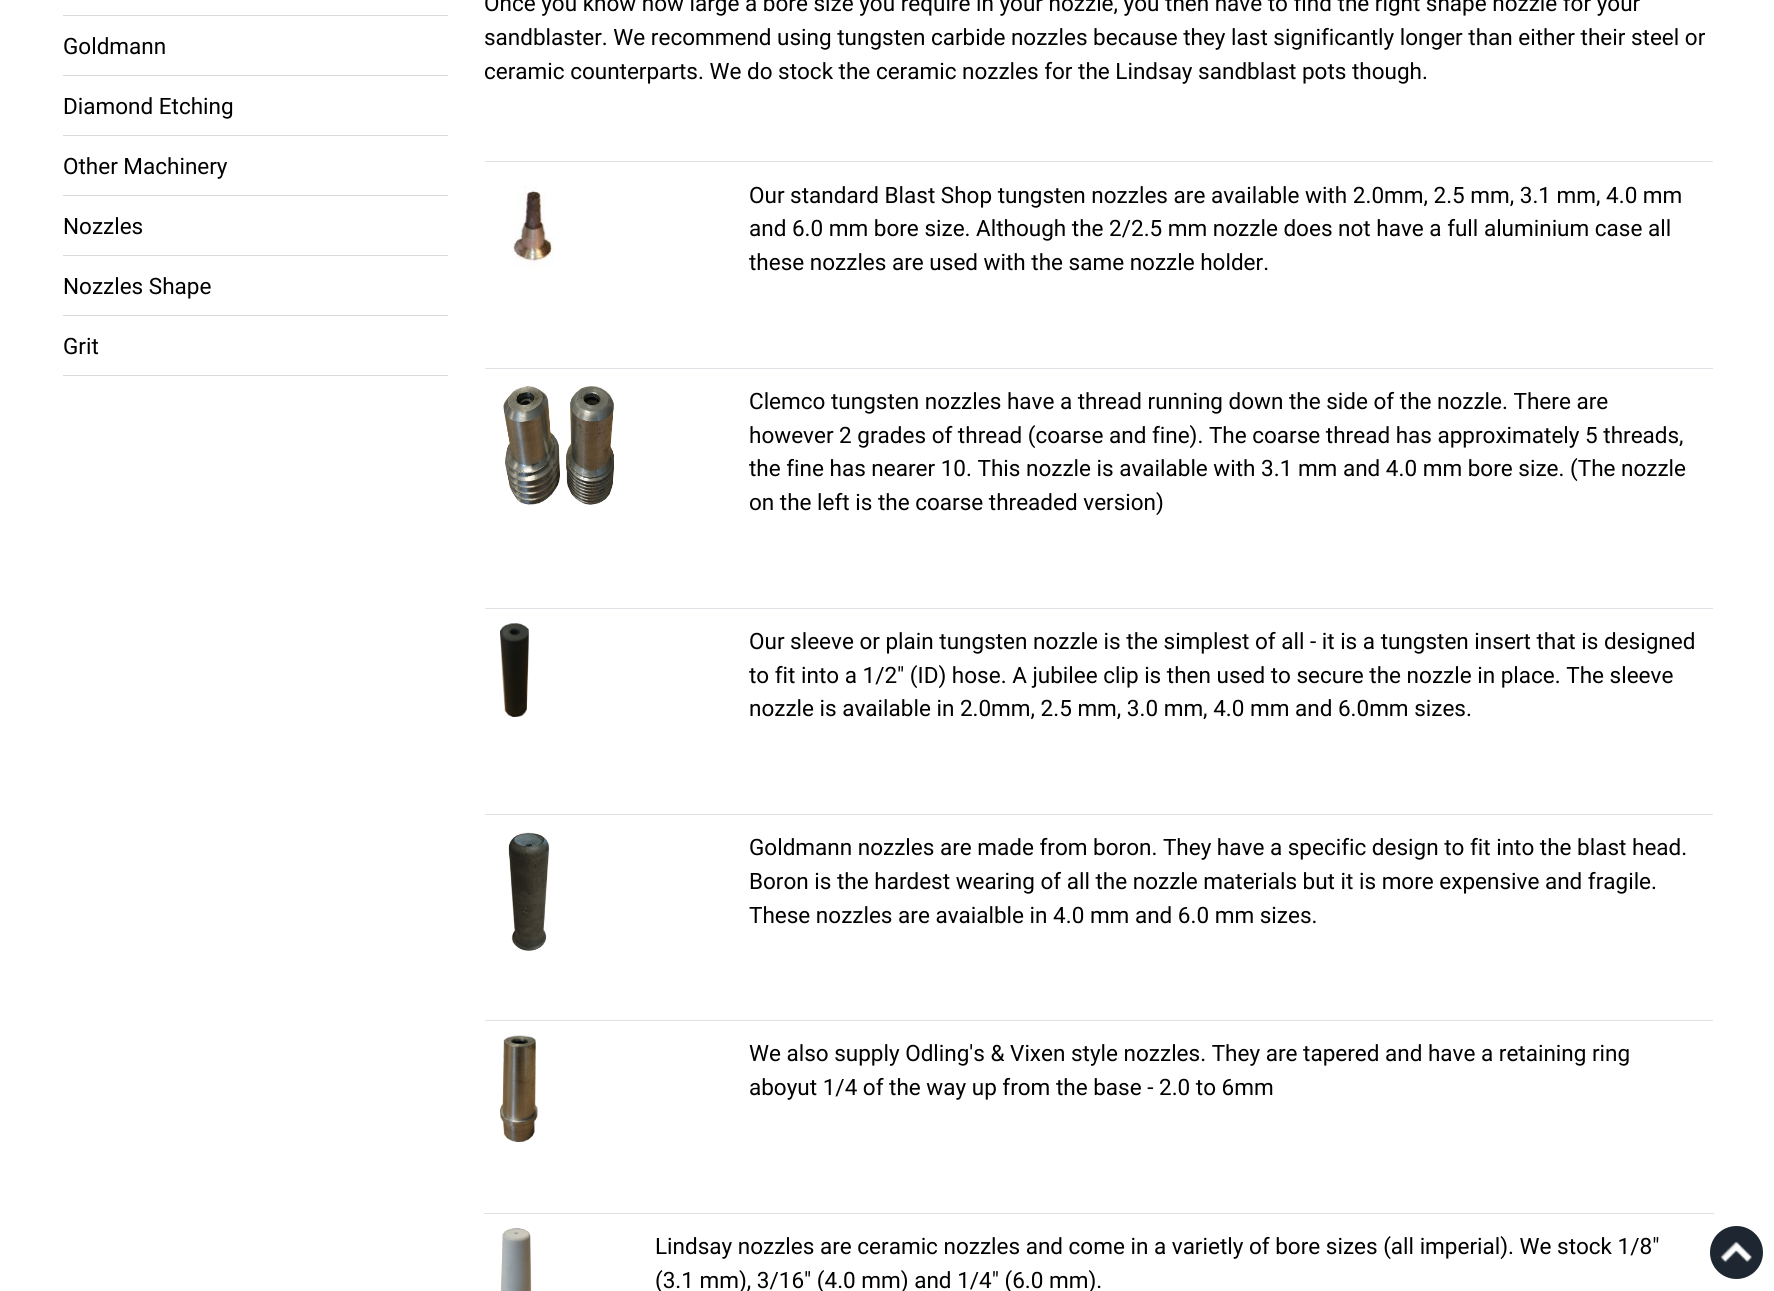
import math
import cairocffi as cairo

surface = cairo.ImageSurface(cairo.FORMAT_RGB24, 1774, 1291)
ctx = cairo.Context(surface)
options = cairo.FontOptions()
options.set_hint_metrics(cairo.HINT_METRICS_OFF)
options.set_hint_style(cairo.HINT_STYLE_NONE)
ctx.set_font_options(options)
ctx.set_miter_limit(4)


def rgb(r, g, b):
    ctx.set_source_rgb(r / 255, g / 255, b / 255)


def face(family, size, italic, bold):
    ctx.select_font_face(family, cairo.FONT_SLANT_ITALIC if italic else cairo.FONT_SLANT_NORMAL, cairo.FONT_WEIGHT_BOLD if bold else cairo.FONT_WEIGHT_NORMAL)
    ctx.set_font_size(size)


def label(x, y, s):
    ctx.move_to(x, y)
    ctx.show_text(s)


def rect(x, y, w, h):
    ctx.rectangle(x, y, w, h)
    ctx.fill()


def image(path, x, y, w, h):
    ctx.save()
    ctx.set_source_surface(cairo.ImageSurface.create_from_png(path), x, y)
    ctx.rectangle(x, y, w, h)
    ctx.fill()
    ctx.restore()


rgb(255, 255, 255)
ctx.paint()
rgb(218, 218, 218)
rect(63, 15, 385, 1)
rect(63, 75, 385, 1)
face('Roboto', 22.5, 0, 0)
rgb(0, 0, 0)
label(63, 54, 'Goldmann')
rgb(218, 218, 218)
rect(63, 135, 385, 1)
rgb(0, 0, 0)
label(63, 114, 'Diamond Etching')
rgb(218, 218, 218)
rect(63, 195, 385, 1)
rgb(0, 0, 0)
label(63, 174, 'Other Machinery')
rgb(218, 218, 218)
rect(63, 255, 385, 1)
rgb(0, 0, 0)
label(63, 234, 'Nozzles')
rgb(218, 218, 218)
rect(63, 315, 385, 1)
rgb(0, 0, 0)
label(63, 294, 'Nozzles Shape')
rgb(218, 218, 218)
rect(63, 375, 385, 1)
rgb(0, 0, 0)
label(63, 354, 'Grit')
label(484, 11, 'Once you know how large a bore size you require in your nozzle, you then have to find the right shape nozzle for your')
label(484, 45, 'sandblaster. We recommend using tungsten carbide nozzles because they last significantly longer than either their steel or')
label(484, 79, 'ceramic counterparts. We do stock the ceramic nozzles for the Lindsay sandblast pots though.')
image('image0.png', 511, 186, 44, 81)
rgb(222, 226, 230)
rect(485, 161, 1228, 1)
rgb(0, 0, 0)
label(749, 203, 'Our standard Blast Shop tungsten nozzles are available with 2.0mm, 2.5 mm, 3.1 mm, 4.0 mm')
label(749, 236, 'and 6.0 mm bore size. Although the 2/2.5 mm nozzle does not have a full aluminium case all')
label(749, 270, 'these nozzles are used with the same nozzle holder.')
image('image1.png', 503, 386, 111, 119)
rgb(222, 226, 230)
rect(485, 368, 1228, 1)
rgb(0, 0, 0)
label(749, 409, 'Clemco tungsten nozzles have a thread running down the side of the nozzle. There are')
label(749, 443, 'however 2 grades of thread (coarse and fine). The coarse thread has approximately 5 threads,')
label(749, 476, 'the fine has nearer 10. This nozzle is available with 3.1 mm and 4.0 mm bore size. (The nozzle')
label(749, 510, 'on the left is the coarse threaded version)')
image('image2.png', 500, 623, 29, 94)
rgb(222, 226, 230)
rect(485, 608, 1228, 1)
rgb(0, 0, 0)
label(749, 649, 'Our sleeve or plain tungsten nozzle is the simplest of all - it is a tungsten insert that is designed')
label(749, 683, 'to fit into a 1/2" (ID) hose. A jubilee clip is then used to secure the nozzle in place. The sleeve')
label(749, 716, 'nozzle is available in 2.0mm, 2.5 mm, 3.0 mm, 4.0 mm and 6.0mm sizes.')
image('image3.png', 508, 832, 42, 119)
rgb(222, 226, 230)
rect(485, 814, 1228, 1)
rgb(0, 0, 0)
label(749, 855, 'Goldmann nozzles are made from boron. They have a specific design to fit into the blast head.')
label(749, 889, 'Boron is the hardest wearing of all the nozzle materials but it is more expensive and fragile.')
label(749, 923, 'These nozzles are avaialble in 4.0 mm and 6.0 mm sizes.')
image('image4.png', 500, 1035, 38, 107)
rgb(222, 226, 230)
rect(485, 1020, 1228, 1)
rgb(0, 0, 0)
label(749, 1061, 'We also supply Odling\'s & Vixen style nozzles. They are tapered and have a retaining ring')
label(749, 1095, 'aboyut 1/4 of the way up from the base - 2.0 to 6mm')
image('image5.png', 500, 1228, 32, 63)
rgb(222, 226, 230)
rect(484, 1213, 1230, 1)
rgb(0, 0, 0)
label(655, 1254, 'Lindsay nozzles are ceramic nozzles and come in a varietly of bore sizes (all imperial). We stock 1/8"')
label(655, 1288, '(3.1 mm), 3/16" (4.0 mm) and 1/4" (6.0 mm).')
rgb(30, 39, 49)
ctx.new_path()
ctx.arc(1736.5, 1252.5, 26.5, 0, 2 * math.pi)
ctx.fill()
image('image6.png', 1720, 1241, 33, 22)
surface.write_to_png('render.png')
